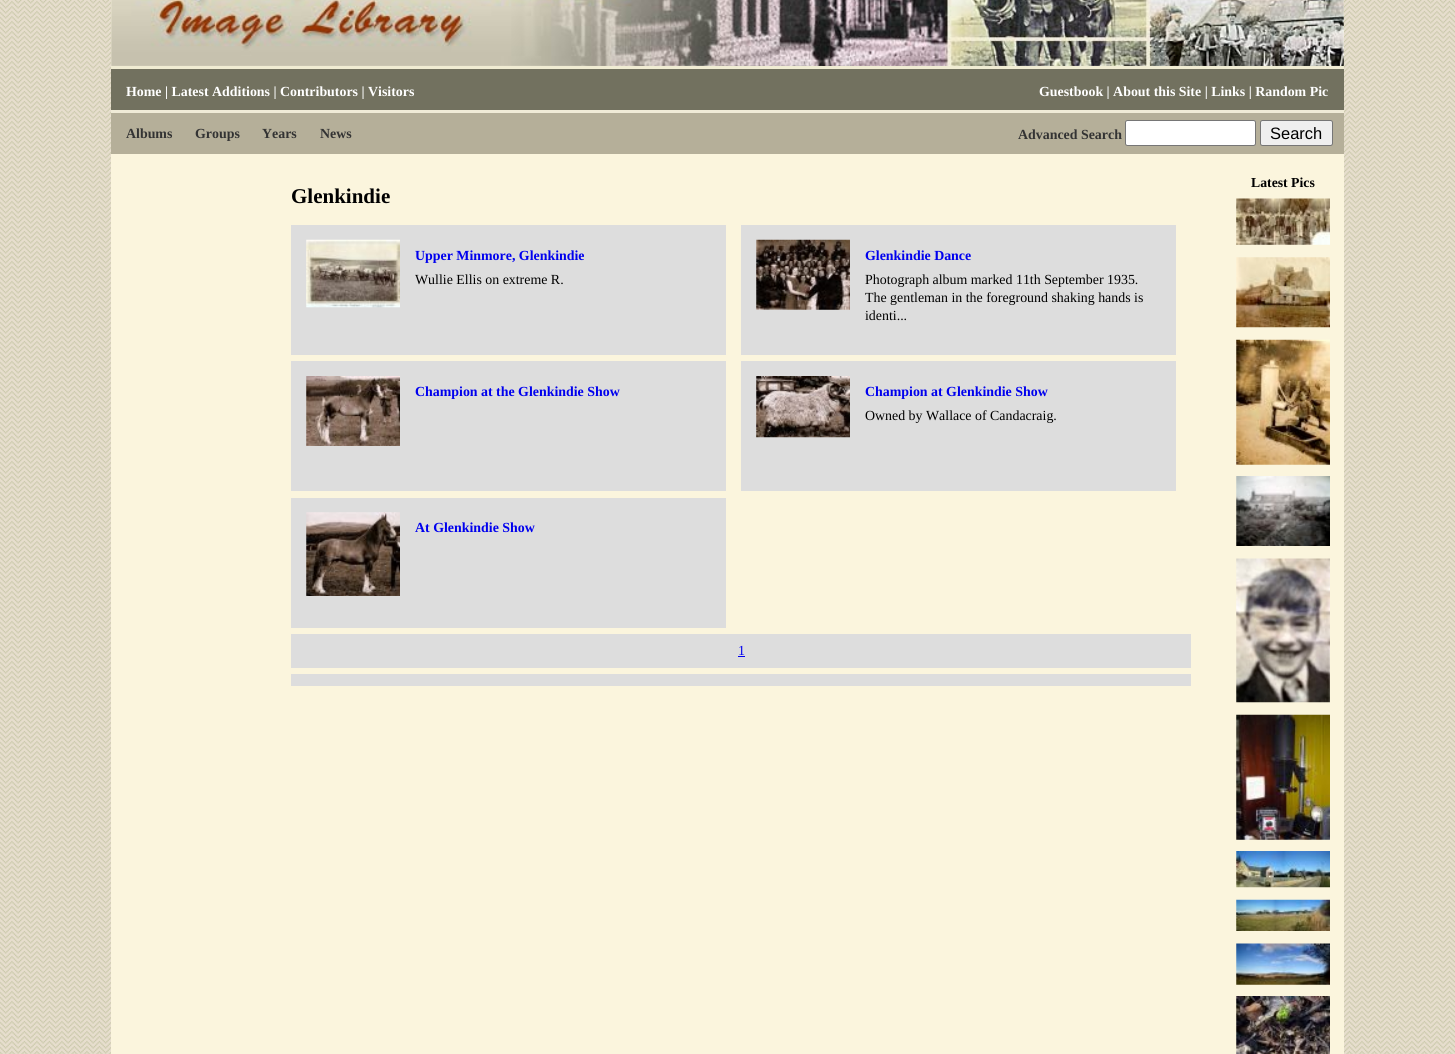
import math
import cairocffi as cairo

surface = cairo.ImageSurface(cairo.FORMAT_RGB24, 1455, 1054)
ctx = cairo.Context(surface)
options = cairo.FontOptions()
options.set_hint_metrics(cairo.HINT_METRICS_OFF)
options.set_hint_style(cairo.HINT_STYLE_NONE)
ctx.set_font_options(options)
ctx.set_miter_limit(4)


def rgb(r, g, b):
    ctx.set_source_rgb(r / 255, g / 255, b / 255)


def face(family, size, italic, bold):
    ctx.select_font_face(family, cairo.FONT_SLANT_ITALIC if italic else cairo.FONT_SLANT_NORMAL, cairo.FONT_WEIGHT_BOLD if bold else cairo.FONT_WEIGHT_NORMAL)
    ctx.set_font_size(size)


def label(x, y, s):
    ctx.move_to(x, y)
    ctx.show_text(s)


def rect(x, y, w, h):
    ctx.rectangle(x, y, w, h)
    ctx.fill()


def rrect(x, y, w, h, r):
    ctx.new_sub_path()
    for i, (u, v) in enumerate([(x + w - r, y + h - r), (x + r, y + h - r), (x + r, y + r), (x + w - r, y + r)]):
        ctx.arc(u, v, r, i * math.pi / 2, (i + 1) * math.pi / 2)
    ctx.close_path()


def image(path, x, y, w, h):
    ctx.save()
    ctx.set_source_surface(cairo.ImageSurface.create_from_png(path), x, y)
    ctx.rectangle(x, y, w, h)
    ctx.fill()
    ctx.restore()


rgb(255, 255, 255)
ctx.paint()
image('image0.png', 0, 0, 1455, 1054)
rgb(251, 245, 221)
rect(111, 0, 1233, 1054)
image('image1.png', 111, 0, 1233, 66)
rgb(240, 236, 211)
rect(111, 66, 1233, 3)
rgb(114, 113, 95)
rect(111, 69, 1233, 41)
face('Liberation Serif', 13.9, 0, 1)
rgb(255, 255, 255)
label(126, 96, 'Home | Latest Additions | Contributors | Visitors')
label(1039, 96, 'Guestbook | About this Site | Links | Random Pic')
rgb(181, 175, 153)
rect(111, 113, 1233, 41)
rgb(240, 235, 215)
rect(111, 110, 1233, 3)
rgb(51, 51, 51)
label(126, 138, 'Albums')
label(195, 138, 'Groups')
label(262, 138, 'Years')
label(320, 138, 'News')
label(1018, 139, 'Advanced Search')
rgb(255, 255, 255)
rrect(1125.5, 120.5, 130, 25, 2)
ctx.fill_preserve()
rgb(118, 118, 118)
ctx.set_line_width(1)
ctx.stroke()
rgb(239, 239, 239)
rrect(1260.5, 120.5, 72, 25, 2)
ctx.fill_preserve()
rgb(118, 118, 118)
ctx.stroke()
face('Liberation Sans', 16.5, 0, 0)
rgb(0, 0, 0)
label(1270, 139, 'Search')
face('Liberation Serif', 13.75, 0, 1)
label(1251, 187, 'Latest Pics')
image('image2.png', 1236, 198, 94, 47)
image('image3.png', 1236, 257, 94, 71)
image('image4.png', 1236, 339, 94, 126)
image('image5.png', 1236, 476, 94, 70)
image('image6.png', 1236, 558, 94, 145)
image('image7.png', 1236, 714, 94, 126)
image('image8.png', 1236, 851, 94, 37)
image('image9.png', 1236, 899, 94, 32)
image('image10.png', 1236, 943, 94, 42)
image('image11.png', 1236, 996, 94, 58)
face('Liberation Serif', 21, 0, 1)
label(291, 203, 'Glenkindie')
rgb(221, 221, 221)
rect(291, 225, 435, 130)
image('image12.png', 306, 239, 94, 69)
face('Liberation Serif', 13.9, 0, 1)
rgb(0, 0, 238)
label(415, 260, 'Upper Minmore, Glenkindie')
face('Liberation Serif', 13.9, 0, 0)
rgb(0, 0, 0)
label(415, 284, 'Wullie Ellis on extreme R.')
rgb(221, 221, 221)
rect(741, 225, 435, 130)
image('image13.png', 756, 239, 94, 71)
face('Liberation Serif', 13.9, 0, 1)
rgb(0, 0, 238)
label(865, 260, 'Glenkindie Dance')
face('Liberation Serif', 13.9, 0, 0)
rgb(0, 0, 0)
label(865, 284, 'Photograph album marked 11th September 1935.')
label(865, 302, 'The gentleman in the foreground shaking hands is')
label(865, 320, 'identi...')
rgb(221, 221, 221)
rect(291, 361, 435, 130)
image('image14.png', 306, 376, 94, 70)
face('Liberation Serif', 13.9, 0, 1)
rgb(0, 0, 238)
label(415, 396, 'Champion at the Glenkindie Show')
rgb(221, 221, 221)
rect(741, 361, 435, 130)
image('image15.png', 756, 376, 94, 62)
rgb(0, 0, 238)
label(865, 396, 'Champion at Glenkindie Show')
face('Liberation Serif', 13.9, 0, 0)
rgb(0, 0, 0)
label(865, 420, 'Owned by Wallace of Candacraig.')
rgb(221, 221, 221)
rect(291, 498, 435, 130)
image('image16.png', 306, 512, 94, 84)
face('Liberation Serif', 13.9, 0, 1)
rgb(0, 0, 238)
label(415, 532, 'At Glenkindie Show')
rgb(221, 221, 221)
rect(291, 634, 900, 34)
face('Liberation Serif', 13.9, 0, 0)
rgb(0, 0, 238)
label(738, 655, '1')
rect(738, 656, 7, 1)
rgb(221, 221, 221)
rect(291, 674, 900, 12)
surface.write_to_png('render.png')
